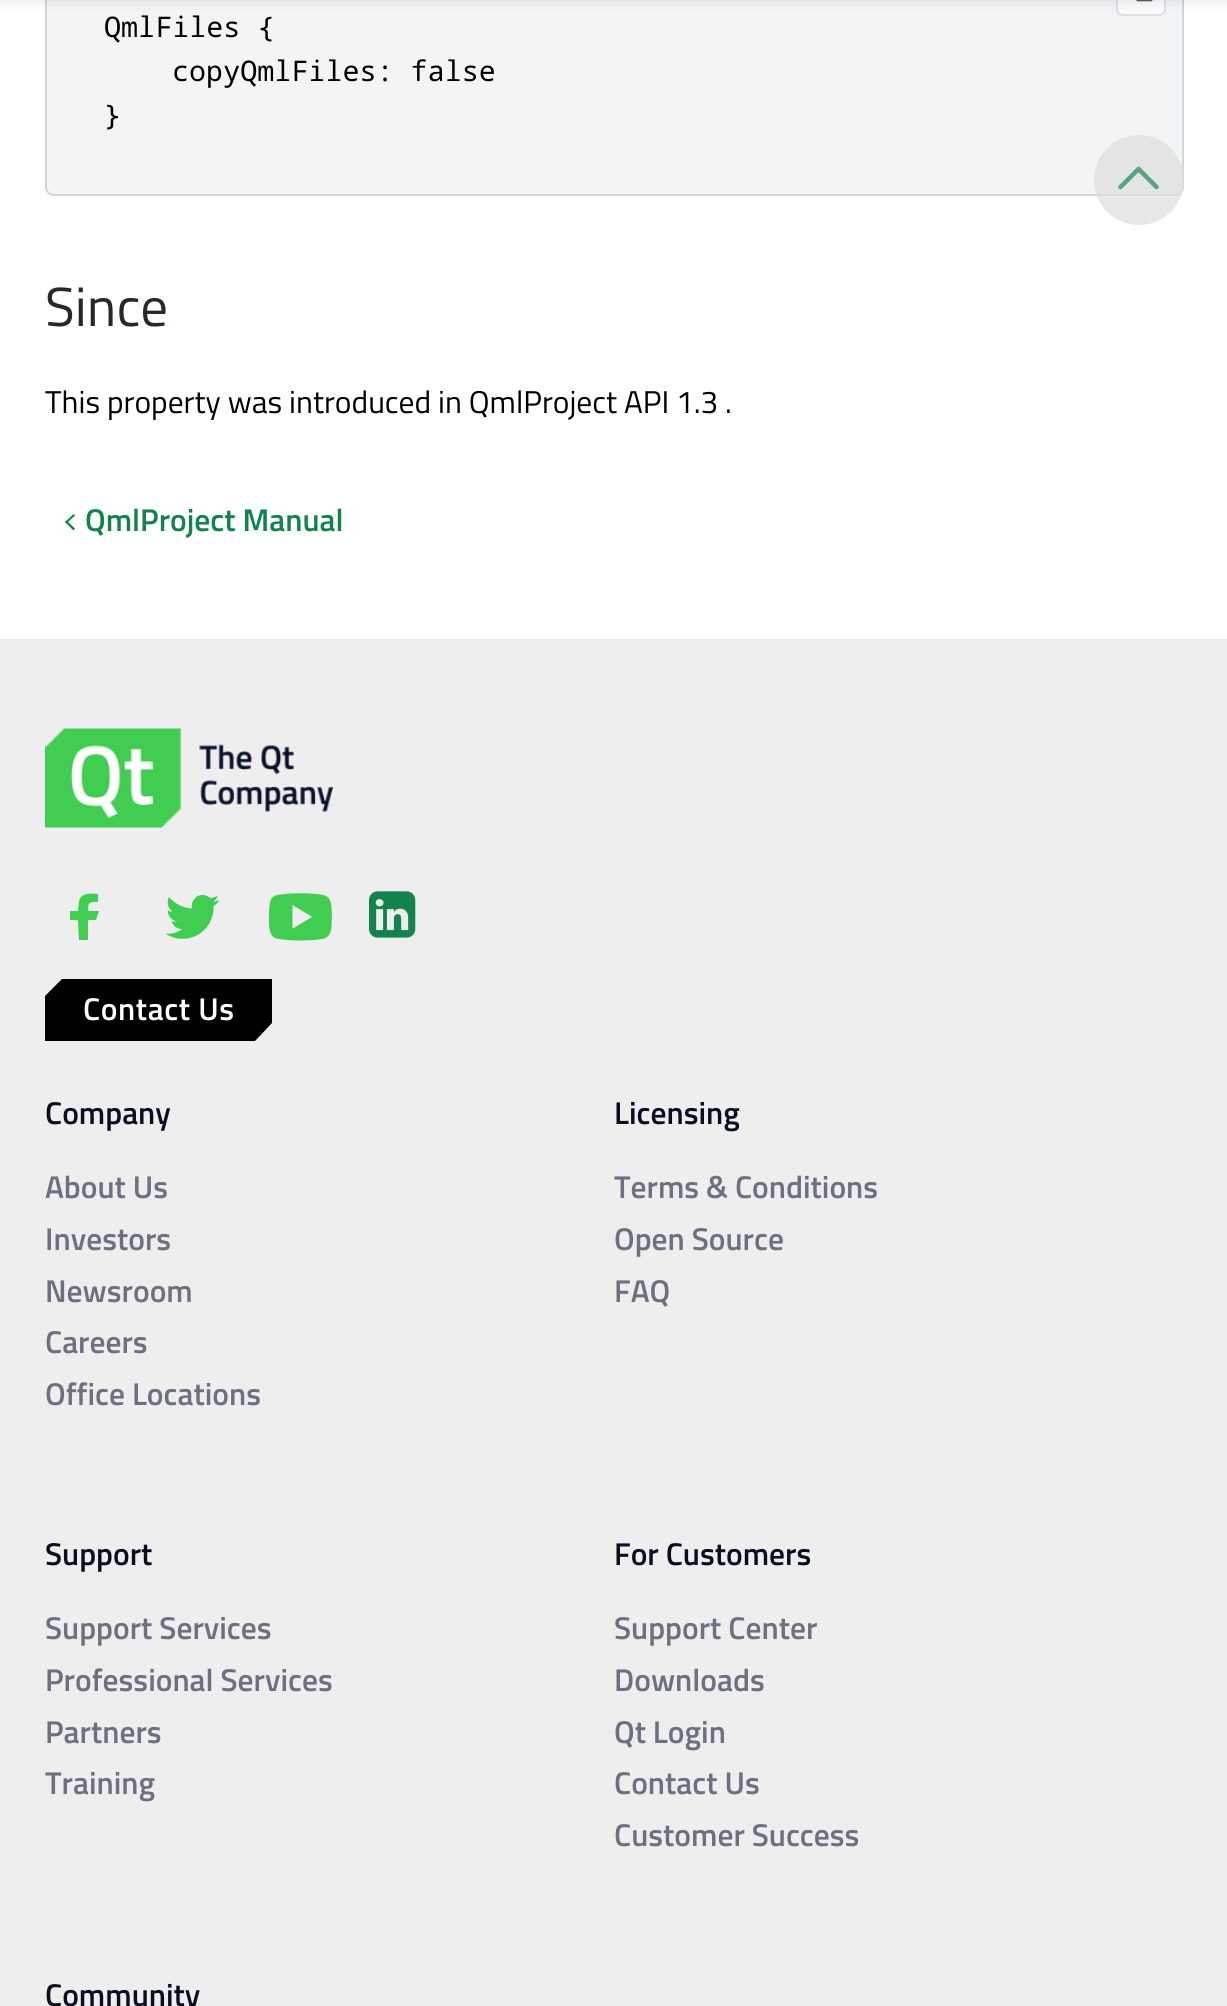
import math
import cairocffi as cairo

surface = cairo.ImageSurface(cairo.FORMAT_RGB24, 1227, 2006)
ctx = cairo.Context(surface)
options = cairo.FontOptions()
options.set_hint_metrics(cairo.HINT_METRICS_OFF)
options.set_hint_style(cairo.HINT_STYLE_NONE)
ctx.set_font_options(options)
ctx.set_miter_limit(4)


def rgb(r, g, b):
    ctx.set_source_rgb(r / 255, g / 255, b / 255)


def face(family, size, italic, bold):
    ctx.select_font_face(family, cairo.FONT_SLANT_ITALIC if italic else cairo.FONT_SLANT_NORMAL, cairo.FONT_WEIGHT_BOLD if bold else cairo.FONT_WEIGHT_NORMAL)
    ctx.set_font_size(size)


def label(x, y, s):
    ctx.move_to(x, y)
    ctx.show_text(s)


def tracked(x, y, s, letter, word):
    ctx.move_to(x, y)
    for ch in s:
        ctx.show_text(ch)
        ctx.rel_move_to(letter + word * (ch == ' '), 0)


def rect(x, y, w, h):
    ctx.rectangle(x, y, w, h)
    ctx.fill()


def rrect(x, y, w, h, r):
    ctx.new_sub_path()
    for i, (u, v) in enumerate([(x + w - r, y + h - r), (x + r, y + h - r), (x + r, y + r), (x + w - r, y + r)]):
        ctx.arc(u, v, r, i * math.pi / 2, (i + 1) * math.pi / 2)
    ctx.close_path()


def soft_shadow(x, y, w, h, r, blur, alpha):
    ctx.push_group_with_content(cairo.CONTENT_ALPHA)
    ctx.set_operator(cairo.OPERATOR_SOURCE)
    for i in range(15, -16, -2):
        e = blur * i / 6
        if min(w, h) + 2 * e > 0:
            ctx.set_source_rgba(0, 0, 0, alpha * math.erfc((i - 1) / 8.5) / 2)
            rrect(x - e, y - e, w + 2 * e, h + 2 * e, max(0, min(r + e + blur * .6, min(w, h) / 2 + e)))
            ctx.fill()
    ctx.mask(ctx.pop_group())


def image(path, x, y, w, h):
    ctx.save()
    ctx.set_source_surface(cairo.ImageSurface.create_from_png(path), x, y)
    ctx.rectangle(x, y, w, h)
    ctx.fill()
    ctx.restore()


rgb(255, 255, 255)
ctx.paint()
rgb(243, 244, 245)
rrect(46, -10, 1137, 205, 8)
ctx.fill_preserve()
rgb(209, 213, 218)
ctx.stroke()
rgb(251, 251, 252)
rrect(1117, -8, 48, 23, 6)
ctx.fill_preserve()
rgb(221, 224, 227)
ctx.stroke()
image('image0.png', 1136, 0, 17, 2)
rgb(9, 16, 43)
soft_shadow(0, -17, 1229, 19, 0, 5.5, 0.1)
face('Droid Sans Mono', 28.4, 0, 0)
rgb(0, 0, 0)
label(104, 37, 'QmlFiles {')
label(172, 81, 'copyQmlFiles: false')
label(104, 125, '}')
face('Titillium Web', 55, 0, 0)
rgb(38, 40, 42)
label(45, 326, 'Since')
face('Titillium Web', 31.5, 0, 0)
rgb(0, 0, 0)
label(45, 413, 'This property was introduced in QmlProject API 1.3 .')
rgb(18, 131, 75)
ctx.new_path()
ctx.move_to(75, 528.5)
ctx.line_to(73.5, 530.5)
ctx.line_to(65, 522)
ctx.line_to(66.5, 520.5)
ctx.close_path()
ctx.fill()
ctx.new_path()
ctx.move_to(75, 515.5)
ctx.line_to(66.5, 523.5)
ctx.line_to(65, 522)
ctx.line_to(73.5, 514)
ctx.close_path()
ctx.fill()
face('Titillium Web SemiBold', 31.5, 0, 0)
label(85, 531, 'QmlProject Manual')
ctx.set_source_rgba(0.867, 0.867, 0.867, 0.7)
ctx.new_path()
ctx.arc(1139, 180, 45, 0, 2 * math.pi)
ctx.fill()
ctx.new_path()
ctx.move_to(1120.5, 187)
ctx.line_to(1138.5, 169)
ctx.line_to(1156.5, 187)
rgb(86, 165, 126)
ctx.set_line_width(4.5)
ctx.set_line_cap(cairo.LINE_CAP_ROUND)
ctx.set_line_join(cairo.LINE_JOIN_ROUND)
ctx.stroke()
rgb(238, 238, 238)
rect(0, 639, 1227, 1367)
image('image1.png', 45, 728, 288, 100)
rgb(65, 205, 82)
ctx.set_fill_rule(cairo.FILL_RULE_EVEN_ODD)
ctx.new_path()
ctx.move_to(79, 940)
ctx.line_to(78, 920)
ctx.line_to(70, 920)
ctx.line_to(70, 911)
ctx.line_to(78, 911)
ctx.line_to(79, 902)
ctx.curve_to(80, 893, 90, 893, 98, 894)
ctx.line_to(98, 902)
ctx.curve_to(89, 902, 88, 902, 88, 911)
ctx.line_to(99, 911)
ctx.line_to(96, 920)
ctx.line_to(88, 920)
ctx.line_to(88, 940)
ctx.close_path()
ctx.fill()
image('image2.png', 165, 894, 55, 45)
image('image3.png', 268, 893, 64, 48)
image('image4.png', 369, 891, 47, 47)
rgb(0, 0, 0)
ctx.set_fill_rule(cairo.FILL_RULE_WINDING)
ctx.new_path()
ctx.move_to(45, 996)
ctx.line_to(62, 979)
ctx.line_to(272, 979)
ctx.line_to(272, 1023)
ctx.line_to(255, 1041)
ctx.line_to(45, 1041)
ctx.close_path()
ctx.fill()
rgb(255, 255, 255)
tracked(83, 1020, 'Contact Us', 0.6, 0)
rgb(9, 14, 33)
label(45, 1124, 'Company')
rgb(108, 112, 128)
label(45, 1198, 'About Us')
label(45, 1250, 'Investors')
label(45, 1302, 'Newsroom')
label(45, 1353, 'Careers')
label(45, 1405, 'Office Locations')
rgb(9, 14, 33)
label(614, 1124, 'Licensing')
rgb(108, 112, 128)
label(614, 1198, 'Terms & Conditions')
label(614, 1250, 'Open Source')
label(614, 1302, 'FAQ')
rgb(9, 14, 33)
label(45, 1565, 'Support')
rgb(108, 112, 128)
label(45, 1639, 'Support Services')
label(45, 1691, 'Professional Services')
label(45, 1743, 'Partners')
label(45, 1794, 'Training')
rgb(9, 14, 33)
label(614, 1565, 'For Customers')
rgb(108, 112, 128)
label(614, 1639, 'Support Center')
label(614, 1691, 'Downloads')
label(614, 1743, 'Qt Login')
label(614, 1794, 'Contact Us')
label(614, 1846, 'Customer Success')
rgb(9, 14, 33)
label(45, 2006, 'Community')
surface.write_to_png('render.png')
